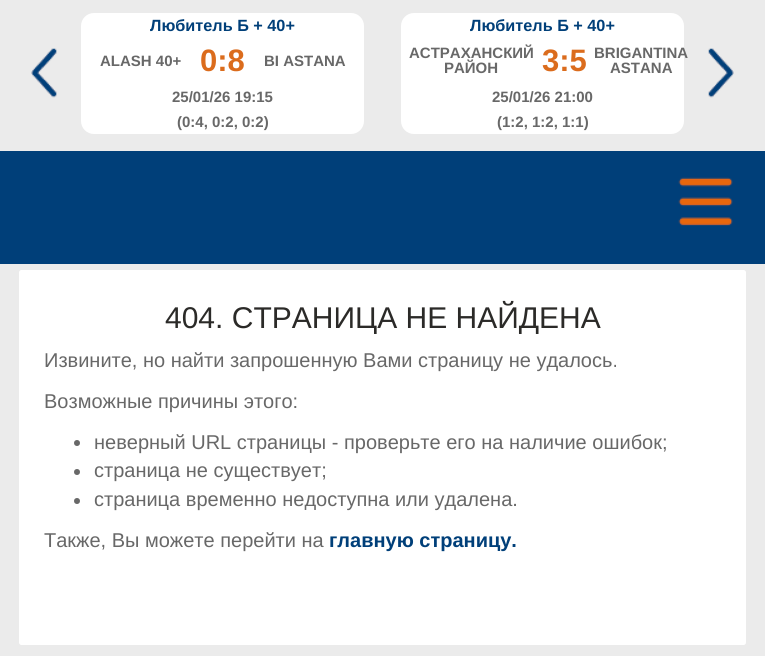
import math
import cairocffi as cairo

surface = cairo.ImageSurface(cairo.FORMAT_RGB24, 765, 656)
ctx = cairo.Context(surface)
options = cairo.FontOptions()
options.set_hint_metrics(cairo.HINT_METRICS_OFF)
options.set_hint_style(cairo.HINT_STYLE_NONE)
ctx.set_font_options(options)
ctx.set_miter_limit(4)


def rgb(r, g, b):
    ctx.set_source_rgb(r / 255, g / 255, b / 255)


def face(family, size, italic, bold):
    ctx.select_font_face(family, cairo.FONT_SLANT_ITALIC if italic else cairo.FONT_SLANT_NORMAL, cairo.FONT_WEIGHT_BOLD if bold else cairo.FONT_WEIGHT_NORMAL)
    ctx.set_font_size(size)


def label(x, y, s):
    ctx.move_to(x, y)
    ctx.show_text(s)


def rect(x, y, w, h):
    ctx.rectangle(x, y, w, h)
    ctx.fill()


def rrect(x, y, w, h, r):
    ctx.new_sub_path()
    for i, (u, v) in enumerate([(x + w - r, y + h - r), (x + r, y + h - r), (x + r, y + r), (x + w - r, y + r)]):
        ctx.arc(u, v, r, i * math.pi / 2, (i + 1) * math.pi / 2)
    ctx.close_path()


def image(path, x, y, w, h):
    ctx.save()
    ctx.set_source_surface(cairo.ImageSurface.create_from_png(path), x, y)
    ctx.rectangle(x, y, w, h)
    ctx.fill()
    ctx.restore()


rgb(235, 235, 235)
ctx.paint()
image('image0.png', 31, 48, 26, 50)
rgb(255, 255, 255)
rrect(81, 13, 283, 121, 13)
ctx.fill()
face('Liberation Sans', 16.25, 0, 1)
rgb(0, 63, 121)
label(150, 31, 'Любитель Б + 40+')
face('Liberation Sans', 15, 0, 1)
rgb(104, 104, 104)
label(100, 66, 'ALASH 40+')
face('Liberation Sans', 31, 0, 1)
rgb(219, 108, 29)
label(200, 71, '0:8')
face('Liberation Sans', 15, 0, 1)
rgb(104, 104, 104)
label(264, 66, 'BI ASTANA')
label(172, 102, '25/01/26 19:15')
label(177, 127, '(0:4, 0:2, 0:2)')
rgb(255, 255, 255)
rrect(401, 13, 283, 121, 13)
ctx.fill()
face('Liberation Sans', 16.25, 0, 1)
rgb(0, 63, 121)
label(470, 31, 'Любитель Б + 40+')
face('Liberation Sans', 15, 0, 1)
rgb(104, 104, 104)
label(409, 58, 'АСТРАХАНСКИЙ')
label(444, 73, 'РАЙОН')
face('Liberation Sans', 31, 0, 1)
rgb(219, 108, 29)
label(542, 71, '3:5')
face('Liberation Sans', 15, 0, 1)
rgb(104, 104, 104)
label(594, 58, 'BRIGANTINA')
label(610, 73, 'ASTANA')
label(492, 102, '25/01/26 21:00')
label(497, 127, '(1:2, 1:2, 1:1)')
image('image1.png', 708, 48, 26, 50)
rgb(0, 63, 121)
rect(0, 151, 765, 113)
image('image2.png', 678, 177, 55, 49)
rgb(255, 255, 255)
rrect(19, 270, 727, 375, 2.5)
ctx.fill()
face('Liberation Sans', 30, 0, 0)
rgb(43, 42, 40)
label(165, 328, '404. СТРАНИЦА НЕ НАЙДЕНА')
face('Liberation Sans', 20, 0, 0)
rgb(104, 104, 104)
label(44, 367, 'Извините, но найти запрошенную Вами страницу не удалось.')
label(44, 408, 'Возможные причины этого:')
ctx.new_path()
ctx.arc(77, 443, 3, 0, 2 * math.pi)
ctx.fill()
label(94, 449, 'неверный URL страницы - проверьте его на наличие ошибок;')
ctx.new_path()
ctx.arc(77, 472, 3, 0, 2 * math.pi)
ctx.fill()
label(94, 477, 'страница не существует;')
ctx.new_path()
ctx.arc(77, 501, 3, 0, 2 * math.pi)
ctx.fill()
label(94, 506, 'страница временно недоступна или удалена.')
label(44, 547, 'Также, Вы можете перейти на')
face('Liberation Sans', 20, 0, 1)
rgb(0, 63, 121)
label(329, 547, 'главную страницу.')
surface.write_to_png('render.png')
